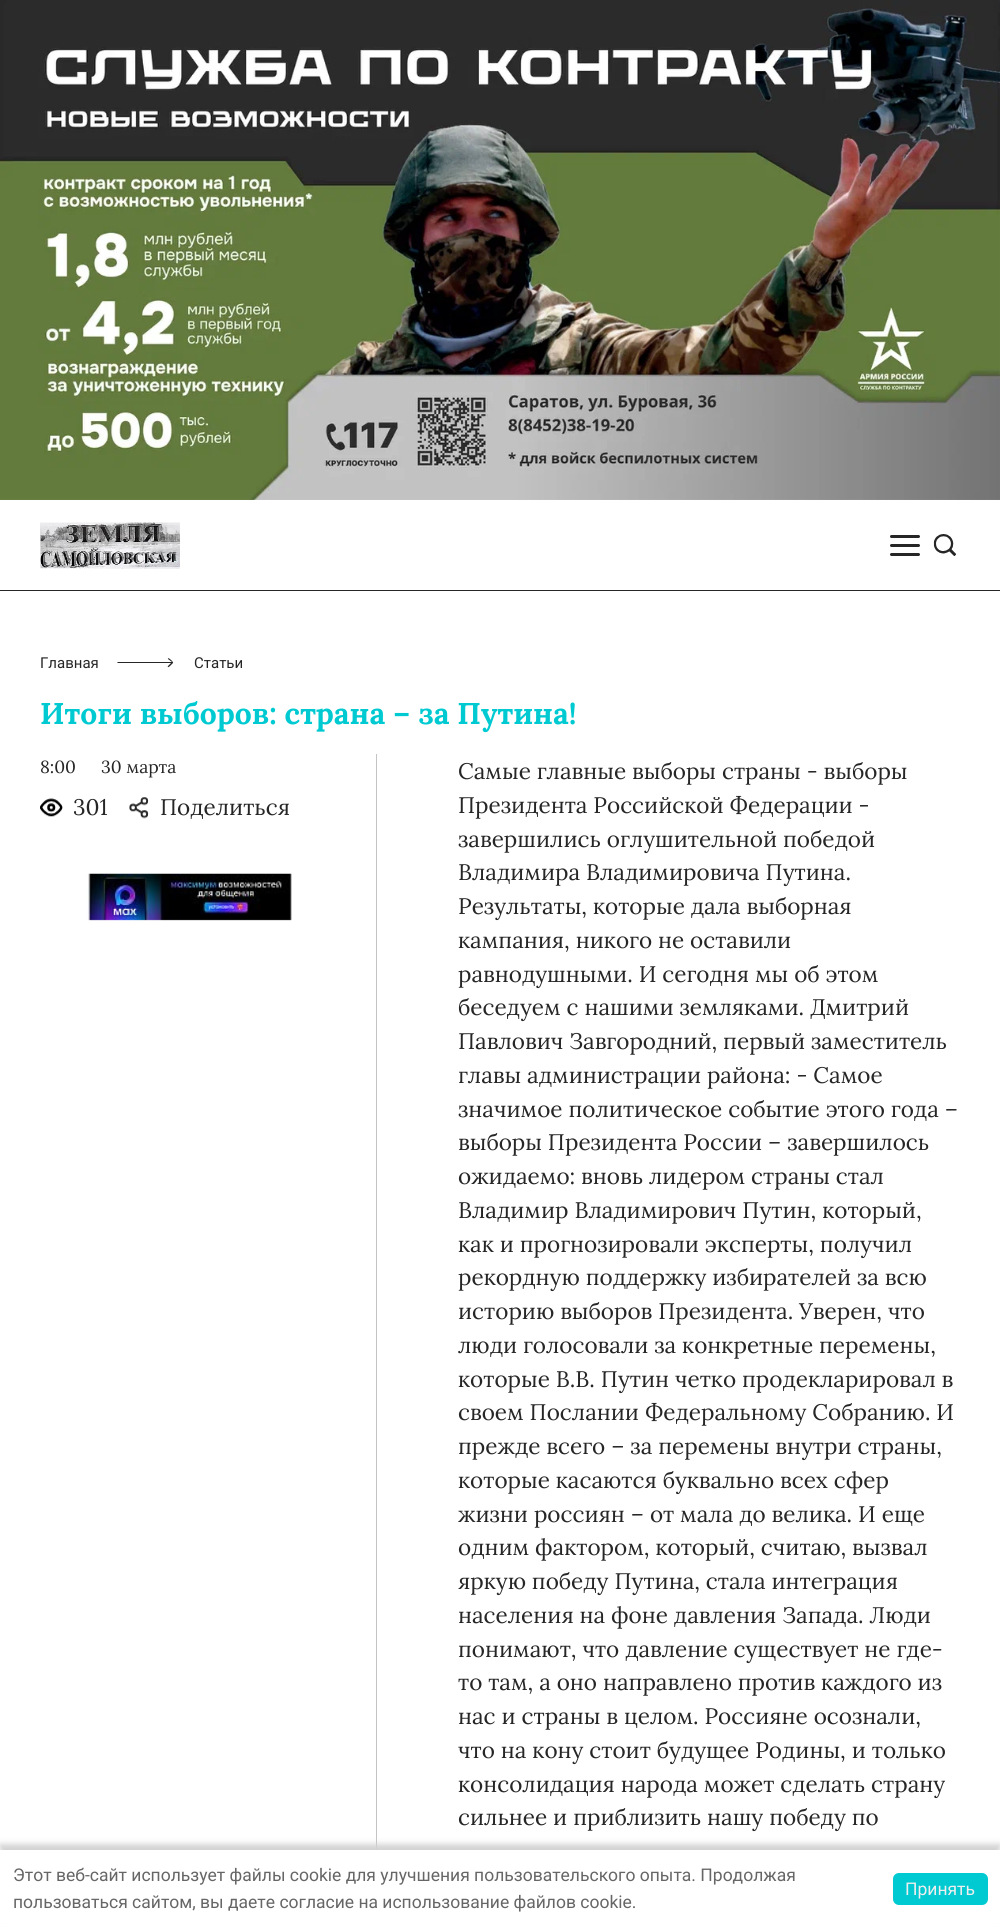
import math
import cairocffi as cairo

surface = cairo.ImageSurface(cairo.FORMAT_RGB24, 1000, 1927)
ctx = cairo.Context(surface)
options = cairo.FontOptions()
options.set_hint_metrics(cairo.HINT_METRICS_OFF)
options.set_hint_style(cairo.HINT_STYLE_NONE)
ctx.set_font_options(options)
ctx.set_miter_limit(4)


def rgb(r, g, b):
    ctx.set_source_rgb(r / 255, g / 255, b / 255)


def face(family, size, italic, bold):
    ctx.select_font_face(family, cairo.FONT_SLANT_ITALIC if italic else cairo.FONT_SLANT_NORMAL, cairo.FONT_WEIGHT_BOLD if bold else cairo.FONT_WEIGHT_NORMAL)
    ctx.set_font_size(size)


def label(x, y, s):
    ctx.move_to(x, y)
    ctx.show_text(s)


def rect(x, y, w, h):
    ctx.rectangle(x, y, w, h)
    ctx.fill()


def rrect(x, y, w, h, r):
    ctx.new_sub_path()
    for i, (u, v) in enumerate([(x + w - r, y + h - r), (x + r, y + h - r), (x + r, y + r), (x + w - r, y + r)]):
        ctx.arc(u, v, r, i * math.pi / 2, (i + 1) * math.pi / 2)
    ctx.close_path()


def soft_shadow(x, y, w, h, r, blur, alpha):
    ctx.push_group_with_content(cairo.CONTENT_ALPHA)
    ctx.set_operator(cairo.OPERATOR_SOURCE)
    for i in range(15, -16, -2):
        e = blur * i / 6
        if min(w, h) + 2 * e > 0:
            ctx.set_source_rgba(0, 0, 0, alpha * math.erfc((i - 1) / 8.5) / 2)
            rrect(x - e, y - e, w + 2 * e, h + 2 * e, max(0, min(r + e + blur * .6, min(w, h) / 2 + e)))
            ctx.fill()
    ctx.mask(ctx.pop_group())


def image(path, x, y, w, h):
    ctx.save()
    ctx.set_source_surface(cairo.ImageSurface.create_from_png(path), x, y)
    ctx.rectangle(x, y, w, h)
    ctx.fill()
    ctx.restore()


rgb(255, 255, 255)
ctx.paint()
image('image0.png', 0, 0, 1000, 500)
rgb(38, 38, 38)
rect(0, 590, 1000, 1)
image('image1.png', 40, 522, 140, 47)
rrect(890, 535, 30, 3, 1.5)
ctx.fill()
rrect(890, 544, 30, 3, 1.5)
ctx.fill()
rrect(890, 553, 30, 3, 1.5)
ctx.fill()
image('image2.png', 933, 534, 24, 22)
face('Roboto', 15, 0, 0)
label(40, 668, 'Главная')
ctx.new_path()
ctx.move_to(118, 662)
ctx.curve_to(117, 662, 117, 663, 118, 663)
ctx.close_path()
ctx.move_to(173, 663)
ctx.curve_to(174, 662, 167, 656, 168, 659)
ctx.line_to(172, 662)
ctx.line_to(168, 666)
ctx.curve_to(167, 668, 169, 667, 170, 666)
ctx.close_path()
ctx.move_to(118, 663)
ctx.line_to(172, 663)
ctx.line_to(172, 662)
ctx.line_to(118, 662)
ctx.close_path()
ctx.fill()
label(194, 668, 'Статьи')
face('Lora', 30, 0, 1)
rgb(0, 202, 209)
label(40, 724, 'Итоги выборов: страна – за Путина!')
rgb(196, 196, 196)
rect(376, 754, 1, 1096)
face('Lora', 17.5, 0, 0)
rgb(38, 38, 38)
label(40, 773, '8:00')
label(101, 773, '30 марта')
image('image3.png', 40, 798, 23, 19)
face('Lora', 22.5, 0, 0)
label(73, 815, '301')
image('image4.png', 129, 797, 20, 22)
label(160, 815, 'Поделиться')
image('image5.png', 86, 873, 206, 48)
label(458, 779, 'Самые главные выборы страны - выборы')
label(458, 813, 'Президента Российской Федерации -')
label(458, 847, 'завершились оглушительной победой')
label(458, 880, 'Владимира Владимировича Путина.')
label(458, 914, 'Результаты, которые дала выборная')
label(458, 948, 'кампания, никого не оставили')
label(458, 982, 'равнодушными. И сегодня мы об этом')
label(458, 1015, 'беседуем с нашими земляками. Дмитрий')
label(458, 1049, 'Павлович Завгородний, первый заместитель')
label(458, 1083, 'главы администрации района: - Самое')
label(458, 1117, 'значимое политическое событие этого года –')
label(458, 1150, 'выборы Президента России – завершилось')
label(458, 1184, 'ожидаемо: вновь лидером страны стал')
label(458, 1218, 'Владимир Владимирович Путин, который,')
label(458, 1252, 'как и прогнозировали эксперты, получил')
label(458, 1285, 'рекордную поддержку избирателей за всю')
label(458, 1319, 'историю выборов Президента. Уверен, что')
label(458, 1353, 'люди голосовали за конкретные перемены,')
label(458, 1387, 'которые В.В. Путин четко продекларировал в')
label(458, 1420, 'своем Послании Федеральному Собранию. И')
label(458, 1454, 'прежде всего – за перемены внутри страны,')
label(458, 1488, 'которые касаются буквально всех сфер')
label(458, 1522, 'жизни россиян – от мала до велика. И еще')
label(458, 1555, 'одним фактором, который, считаю, вызвал')
label(458, 1589, 'яркую победу Путина, стала интеграция')
label(458, 1623, 'населения на фоне давления Запада. Люди')
label(458, 1657, 'понимают, что давление существует не где-')
label(458, 1690, 'то там, а оно направлено против каждого из')
label(458, 1724, 'нас и страны в целом. Россияне осознали,')
label(458, 1758, 'что на кону стоит будущее Родины, и только')
label(458, 1792, 'консолидация народа может сделать страну')
label(458, 1825, 'сильнее и приблизить нашу победу по')
rgb(210, 210, 210)
soft_shadow(0, 1844, 1000, 77, 0, 3, 1)
rgb(255, 255, 255)
rect(0, 1850, 1000, 76)
face('Roboto', 17.5, 0, 0)
rgb(102, 102, 102)
label(13, 1881, 'Этот веб-сайт использует файлы cookie для улучшения пользовательского опыта. Продолжая')
label(13, 1908, 'пользоваться сайтом, вы даете согласие на использование файлов cookie.')
rgb(0, 202, 209)
rrect(893, 1873, 95, 32, 6)
ctx.fill()
rgb(239, 239, 239)
label(905, 1895, 'Принять')
surface.write_to_png('render.png')
